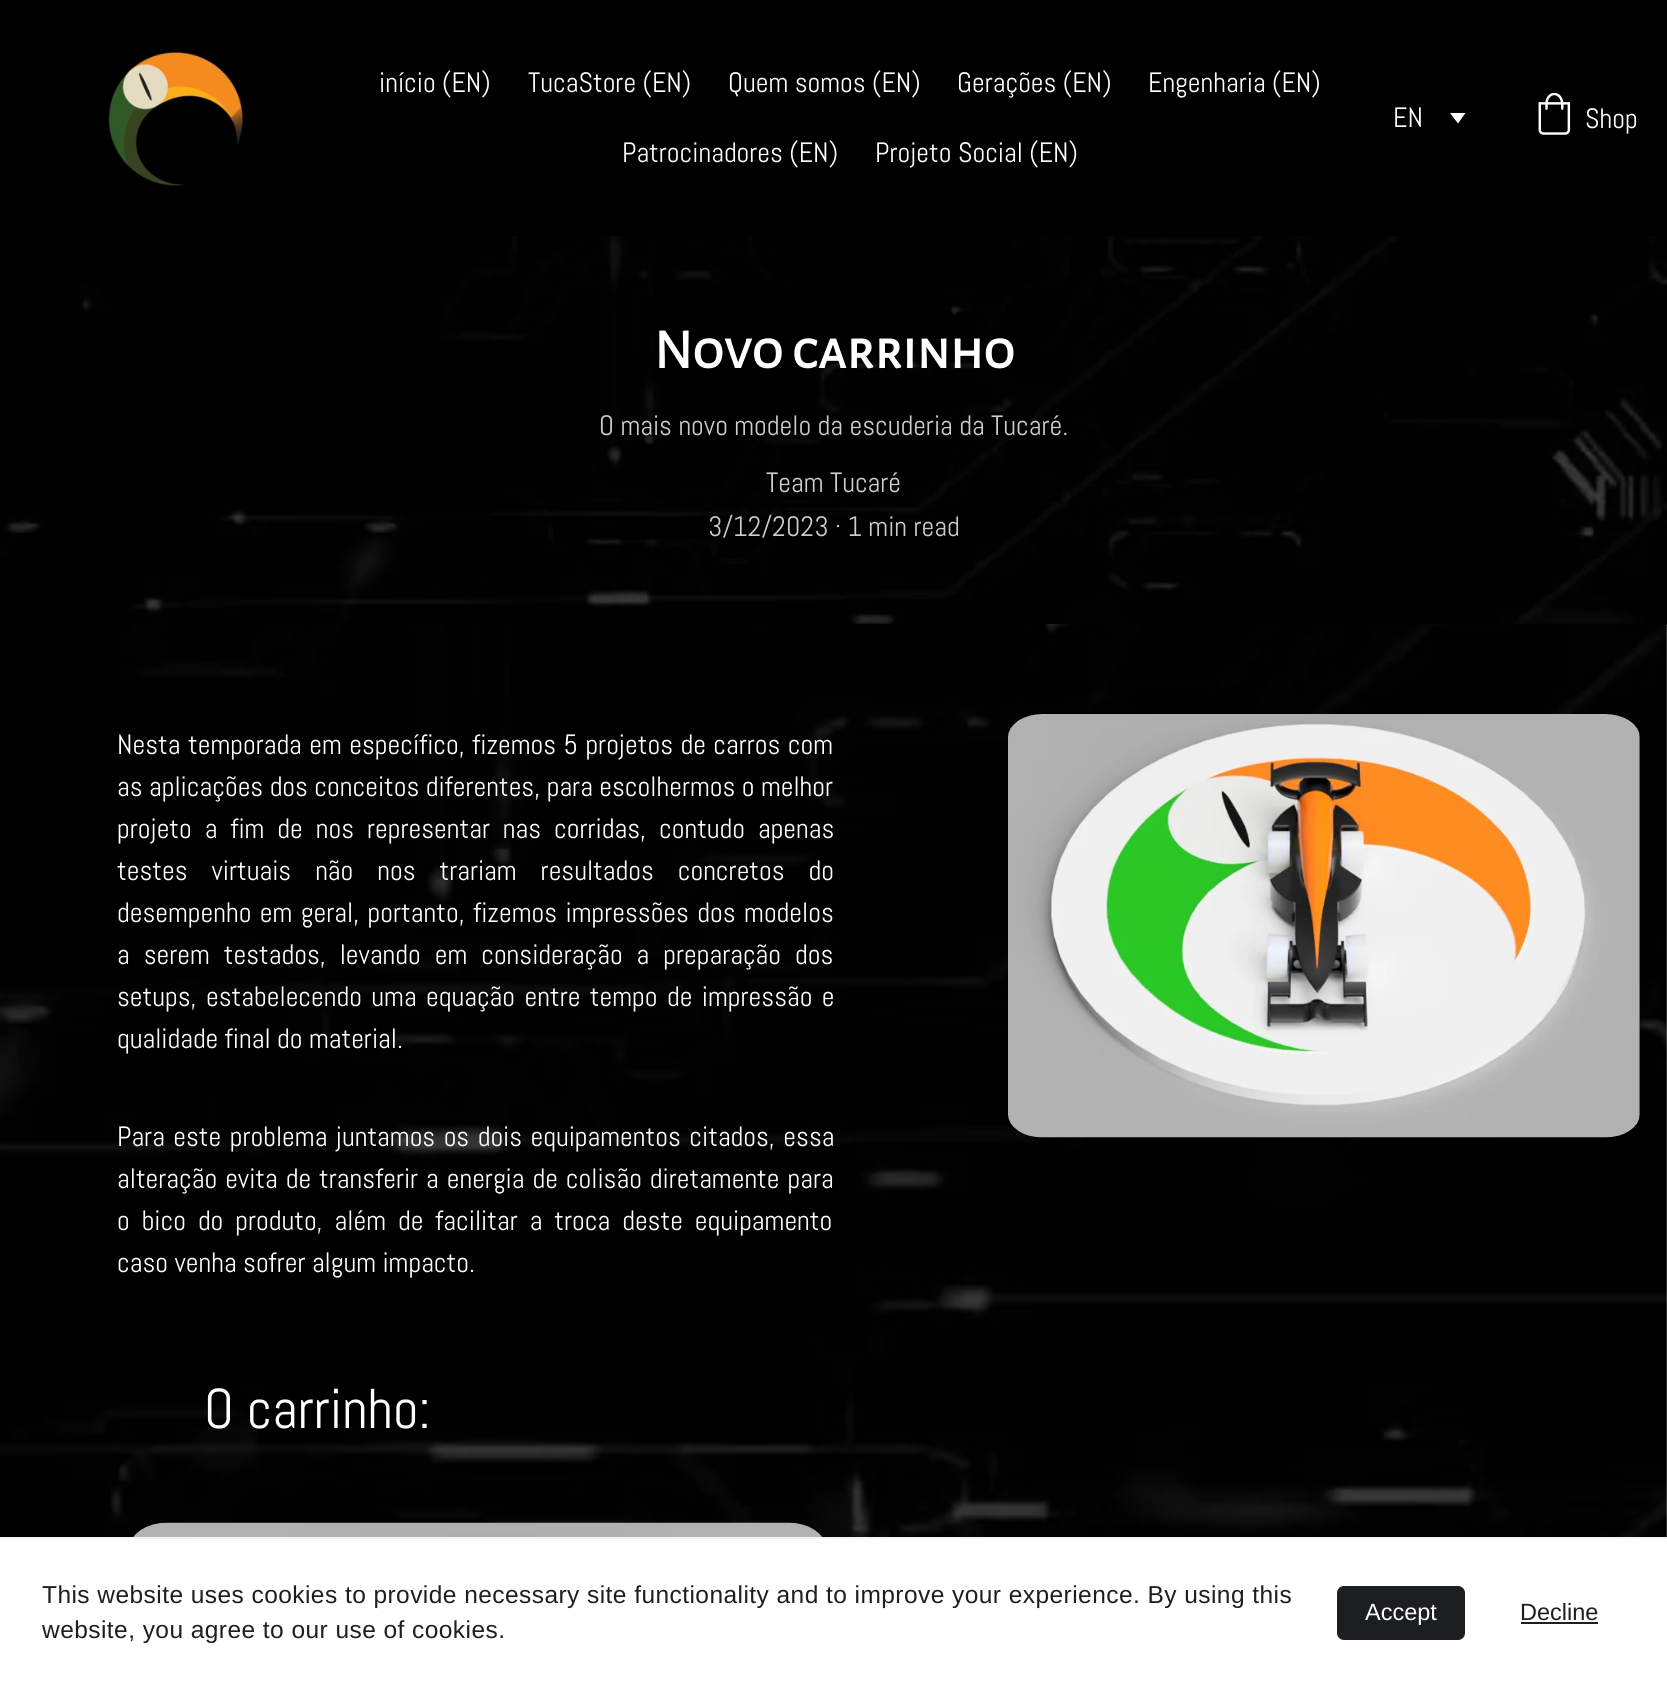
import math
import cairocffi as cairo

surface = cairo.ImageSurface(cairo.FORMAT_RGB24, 1667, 1684)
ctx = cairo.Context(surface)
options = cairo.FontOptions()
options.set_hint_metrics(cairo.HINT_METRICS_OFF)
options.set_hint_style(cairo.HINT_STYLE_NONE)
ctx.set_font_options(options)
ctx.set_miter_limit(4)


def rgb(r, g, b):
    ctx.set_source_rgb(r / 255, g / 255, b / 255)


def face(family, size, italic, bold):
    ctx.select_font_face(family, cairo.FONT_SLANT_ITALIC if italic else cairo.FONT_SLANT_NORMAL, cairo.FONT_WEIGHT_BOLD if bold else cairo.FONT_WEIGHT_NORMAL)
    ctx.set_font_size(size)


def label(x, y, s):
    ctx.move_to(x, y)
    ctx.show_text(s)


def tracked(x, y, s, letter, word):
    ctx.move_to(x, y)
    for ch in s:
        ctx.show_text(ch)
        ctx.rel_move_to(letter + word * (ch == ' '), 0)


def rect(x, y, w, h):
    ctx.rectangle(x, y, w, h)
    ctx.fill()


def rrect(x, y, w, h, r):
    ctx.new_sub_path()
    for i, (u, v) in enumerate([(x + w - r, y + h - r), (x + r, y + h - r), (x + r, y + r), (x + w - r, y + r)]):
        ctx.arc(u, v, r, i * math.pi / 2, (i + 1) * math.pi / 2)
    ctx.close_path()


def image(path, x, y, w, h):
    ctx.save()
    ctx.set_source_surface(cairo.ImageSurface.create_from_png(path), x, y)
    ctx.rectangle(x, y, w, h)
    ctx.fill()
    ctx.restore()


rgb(255, 255, 255)
ctx.paint()
rgb(0, 0, 0)
rect(0, 0, 1667, 236)
image('image0.png', 108, 51, 136, 135)
face('Abel', 28, 0, 0)
rgb(255, 255, 255)
label(379, 92, 'início (EN)')
label(528, 92, 'TucaStore (EN)')
label(728, 92, 'Quem somos (EN)')
label(957, 92, 'Gerações (EN)')
label(1148, 92, 'Engenharia (EN)')
label(622, 162, 'Patrocinadores (EN)')
label(875, 162, 'Projeto Social (EN)')
label(1393, 127, 'EN')
ctx.new_path()
ctx.move_to(1458, 123.5)
ctx.line_to(1450, 113)
ctx.line_to(1465.5, 113)
ctx.close_path()
ctx.fill()
image('image1.png', 1538, 93, 33, 42)
label(1585, 128, 'Shop')
image('image2.png', 0, 236, 1667, 389)
face('Alegreya Sans SC', 56, 0, 1)
label(654, 368, 'Novo carrinho')
face('Abel', 28, 0, 0)
rgb(204, 204, 204)
label(599, 435, 'O mais novo modelo da escuderia da Tucaré.')
label(766, 492, 'Team Tucaré')
label(708, 536, '3/12/2023 · 1 min read')
image('image3.png', 0, 624, 1667, 913)
rgb(255, 255, 255)
tracked(117, 754, 'Nesta temporada em específico, fizemos 5 projetos de carros com', 0, 1)
label(117, 796, 'as aplicações dos conceitos diferentes, para escolhermos o melhor')
tracked(117, 838, 'projeto a fim de nos representar nas corridas, contudo apenas', 0, 6.5)
tracked(117, 880, 'testes virtuais não nos trariam resultados concretos do', 0, 17.5)
tracked(117, 922, 'desempenho em geral, portanto, fizemos impressões dos modelos', 0, 2)
tracked(117, 964, 'a serem testados, levando em consideração a preparação dos', 0, 7.5)
tracked(117, 1006, 'setups, estabelecendo uma equação entre tempo de impressão e', 0, 3)
label(117, 1048, 'qualidade final do material.')
tracked(117, 1146, 'Para este problema juntamos os dois equipamentos citados, essa', 0, 2)
tracked(117, 1188, 'alteração evita de transferir a energia de colisão diretamente para', 0, 1.5)
tracked(117, 1230, 'o bico do produto, além de facilitar a troca deste equipamento', 0, 5.5)
label(117, 1272, 'caso venha sofrer algum impacto.')
image('image4.png', 1008, 714, 632, 424)
face('Abel', 56, 0, 0)
label(204, 1428, 'O carrinho:')
image('image5.png', 133, 1522, 689, 15)
rgb(242, 243, 246)
rect(0, 1537, 1667, 2)
face('Liberation Sans', 24.5, 0, 0)
rgb(29, 30, 32)
tracked(42, 1603, 'This website uses cookies to provide necessary site functionality and to improve your experience. By using this', 0.44, 0)
tracked(42, 1638, 'website, you agree to our use of cookies.', 0.44, 0)
rrect(1337, 1586, 128, 54, 7)
ctx.fill()
face('Liberation Sans', 23.5, 0, 0)
rgb(255, 255, 255)
label(1365, 1620, 'Accept')
rgb(29, 30, 32)
label(1520, 1620, 'Decline')
rect(1521, 1622, 77, 2)
surface.write_to_png('render.png')
